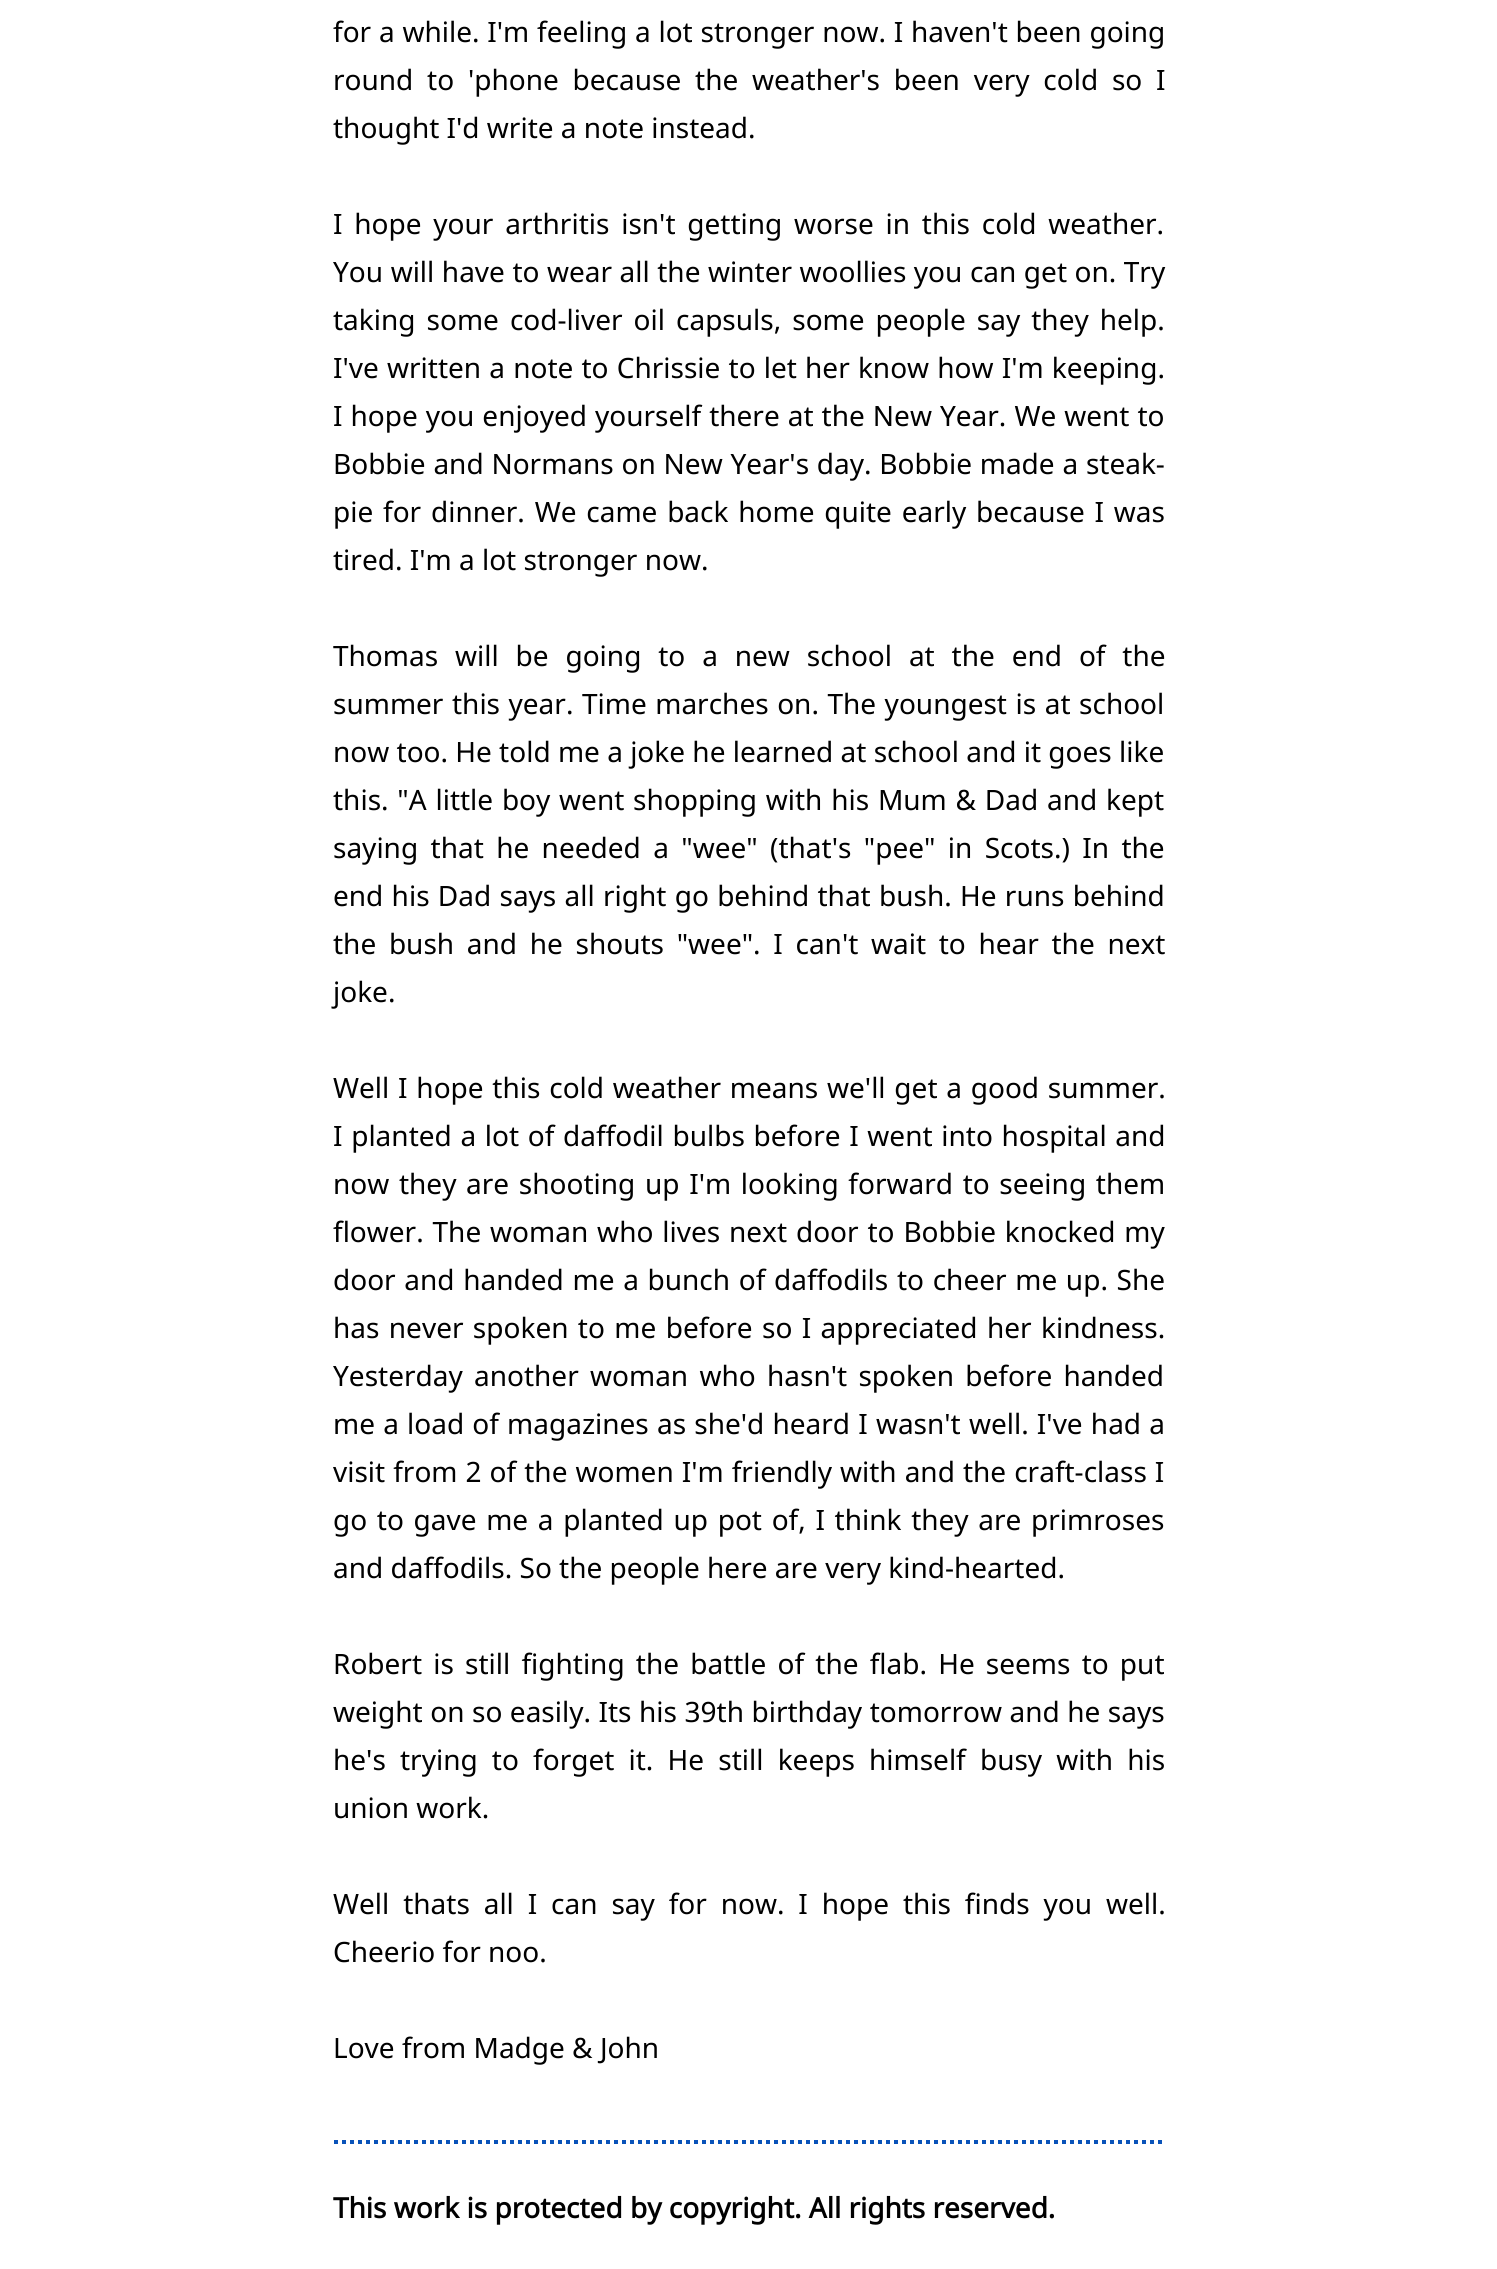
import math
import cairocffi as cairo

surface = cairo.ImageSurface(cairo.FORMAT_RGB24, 1497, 2269)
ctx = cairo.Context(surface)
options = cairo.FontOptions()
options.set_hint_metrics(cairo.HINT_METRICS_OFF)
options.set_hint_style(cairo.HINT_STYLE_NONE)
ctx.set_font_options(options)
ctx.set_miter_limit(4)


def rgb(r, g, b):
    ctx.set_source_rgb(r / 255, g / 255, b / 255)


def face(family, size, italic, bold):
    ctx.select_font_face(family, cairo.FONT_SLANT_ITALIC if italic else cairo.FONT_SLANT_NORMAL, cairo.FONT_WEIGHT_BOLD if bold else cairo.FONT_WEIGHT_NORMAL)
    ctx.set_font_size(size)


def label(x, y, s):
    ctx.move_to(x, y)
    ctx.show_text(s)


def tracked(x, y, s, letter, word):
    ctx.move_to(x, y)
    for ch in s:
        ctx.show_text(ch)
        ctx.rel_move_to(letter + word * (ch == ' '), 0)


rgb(255, 255, 255)
ctx.paint()
ctx.new_path()
ctx.move_to(334, 2142)
ctx.line_to(1166, 2142)
rgb(10, 83, 185)
ctx.set_line_width(4)
ctx.set_dash([4, 4])
ctx.stroke()
face('Noto Sans', 28, 0, 0)
rgb(0, 0, 0)
tracked(333, 42, 'for a while. I\'m feeling a lot stronger now. I haven\'t been going', 0, 0.5)
tracked(333, 90, 'round to \'phone because the weather\'s been very cold so I', 0, 6.5)
label(333, 138, 'thought I\'d write a note instead.')
tracked(333, 234, 'I hope your arthritis isn\'t getting worse in this cold weather.', 0, 4.5)
tracked(333, 282, 'You will have to wear all the winter woollies you can get on. Try', 0, 0.25)
tracked(333, 330, 'taking some cod-liver oil capsuls, some people say they help.', 0, 3.75)
tracked(333, 378, 'I\'ve written a note to Chrissie to let her know how I\'m keeping.', 0, 0.9)
tracked(333, 426, 'I hope you enjoyed yourself there at the New Year. We went to', 0, 0.75)
tracked(333, 474, 'Bobbie and Normans on New Year\'s day. Bobbie made a steak-', 0, 0.5)
tracked(333, 522, 'pie for dinner. We came back home quite early because I was', 0, 2.5)
label(333, 570, 'tired. I\'m a lot stronger now.')
tracked(333, 666, 'Thomas will be going to a new school at the end of the', 0, 9.6)
tracked(333, 714, 'summer this year. Time marches on. The youngest is at school', 0, 1.25)
label(333, 762, 'now too. He told me a joke he learned at school and it goes like')
tracked(333, 810, 'this. "A little boy went shopping with his Mum & Dad and kept', 0, 1.5)
tracked(333, 858, 'saying that he needed a "wee" (that\'s "pee" in Scots.) In the', 0, 5.1)
tracked(333, 906, 'end his Dad says all right go behind that bush. He runs behind', 0, 1)
tracked(333, 954, 'the bush and he shouts "wee". I can\'t wait to hear the next', 0, 5.4)
label(333, 1002, 'joke.')
tracked(333, 1098, 'Well I hope this cold weather means we\'ll get a good summer.', 0, 1.5)
tracked(333, 1146, 'I planted a lot of daffodil bulbs before I went into hospital and', 0, 1.4)
tracked(333, 1194, 'now they are shooting up I\'m looking forward to seeing them', 0, 2.4)
tracked(333, 1242, 'flower. The woman who lives next door to Bobbie knocked my', 0, 1.6)
tracked(333, 1290, 'door and handed me a bunch of daffodils to cheer me up. She', 0, 1.4)
tracked(333, 1338, 'has never spoken to me before so I appreciated her kindness.', 0, 2.1)
tracked(333, 1386, 'Yesterday another woman who hasn\'t spoken before handed', 0, 4)
tracked(333, 1434, 'me a load of magazines as she\'d heard I wasn\'t well. I\'ve had a', 0, 0.9)
tracked(333, 1482, 'visit from 2 of the women I\'m friendly with and the craft-class I', 0, 0.75)
tracked(333, 1530, 'go to gave me a planted up pot of, I think they are primroses', 0, 2.4)
label(333, 1578, 'and daffodils. So the people here are very kind-hearted.')
tracked(333, 1674, 'Robert is still fighting the battle of the flab. He seems to put', 0, 3.9)
tracked(333, 1722, 'weight on so easily. Its his 39th birthday tomorrow and he says', 0, 0.25)
tracked(333, 1770, 'he\'s trying to forget it. He still keeps himself busy with his', 0, 6.9)
label(333, 1818, 'union work.')
tracked(333, 1914, 'Well thats all I can say for now. I hope this finds you well.', 0, 6.6)
label(333, 1962, 'Cheerio for noo.')
label(333, 2058, 'Love from Madge & John')
face('Noto Sans', 28, 0, 1)
label(333, 2218, 'This work is protected by copyright. All rights reserved.')
surface.write_to_png('render.png')
